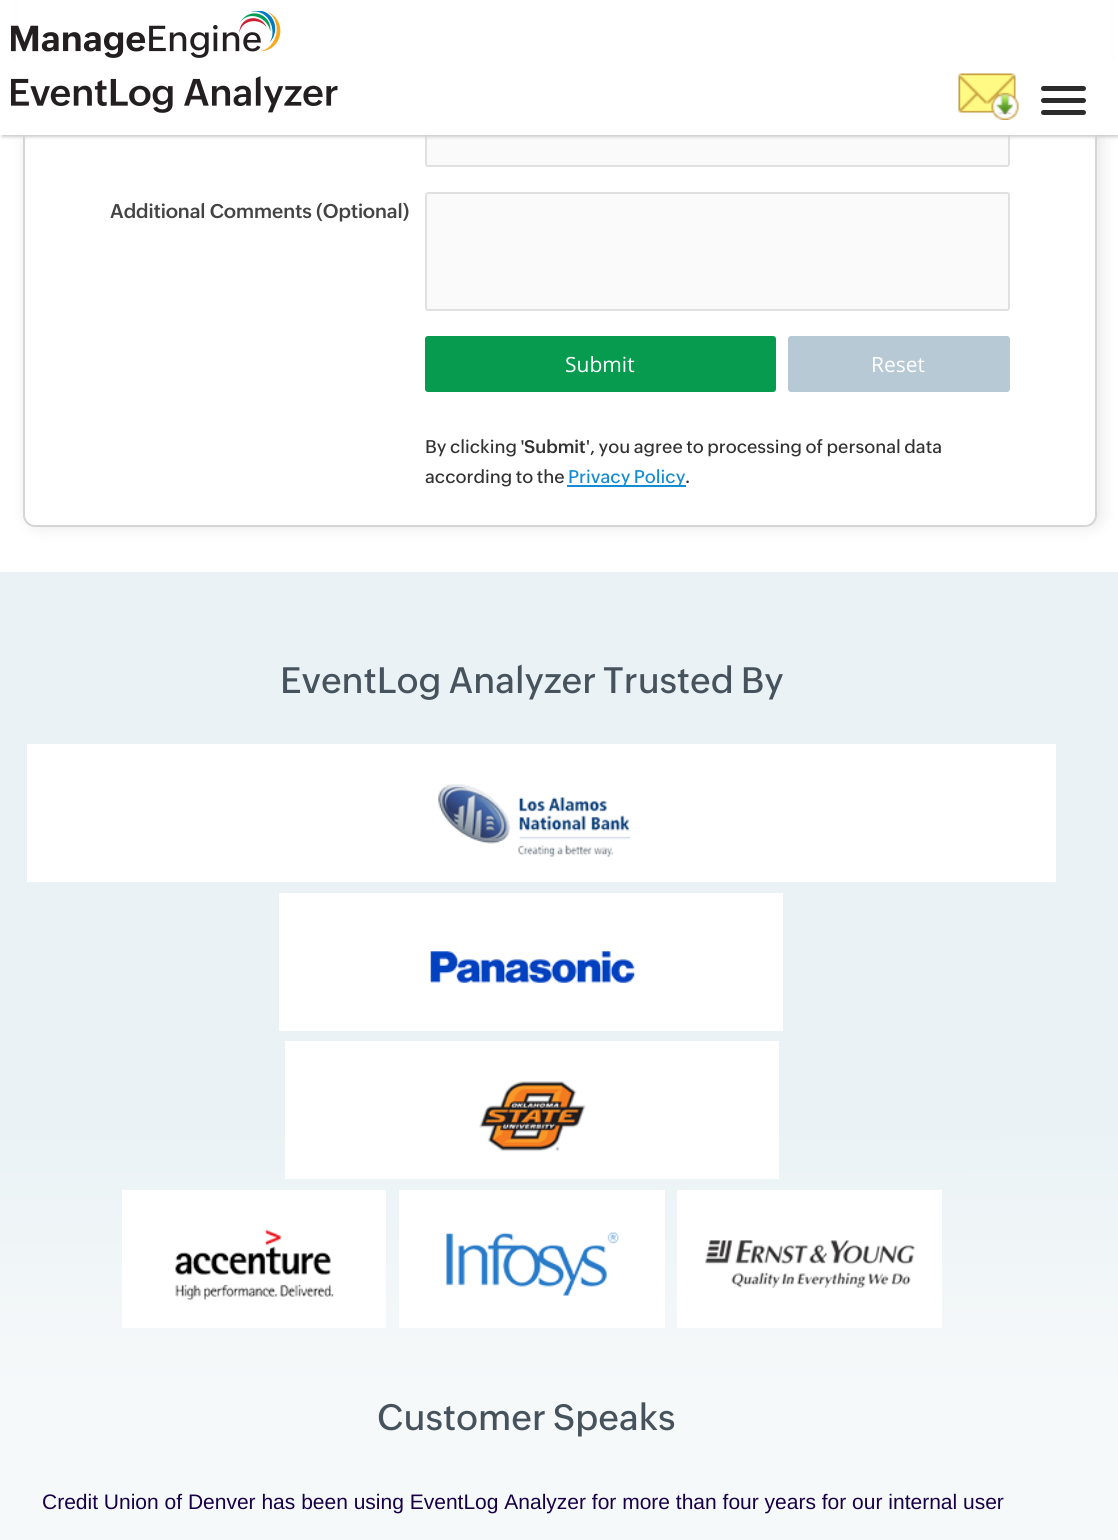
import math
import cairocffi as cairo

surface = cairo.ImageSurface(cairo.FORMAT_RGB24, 1118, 1540)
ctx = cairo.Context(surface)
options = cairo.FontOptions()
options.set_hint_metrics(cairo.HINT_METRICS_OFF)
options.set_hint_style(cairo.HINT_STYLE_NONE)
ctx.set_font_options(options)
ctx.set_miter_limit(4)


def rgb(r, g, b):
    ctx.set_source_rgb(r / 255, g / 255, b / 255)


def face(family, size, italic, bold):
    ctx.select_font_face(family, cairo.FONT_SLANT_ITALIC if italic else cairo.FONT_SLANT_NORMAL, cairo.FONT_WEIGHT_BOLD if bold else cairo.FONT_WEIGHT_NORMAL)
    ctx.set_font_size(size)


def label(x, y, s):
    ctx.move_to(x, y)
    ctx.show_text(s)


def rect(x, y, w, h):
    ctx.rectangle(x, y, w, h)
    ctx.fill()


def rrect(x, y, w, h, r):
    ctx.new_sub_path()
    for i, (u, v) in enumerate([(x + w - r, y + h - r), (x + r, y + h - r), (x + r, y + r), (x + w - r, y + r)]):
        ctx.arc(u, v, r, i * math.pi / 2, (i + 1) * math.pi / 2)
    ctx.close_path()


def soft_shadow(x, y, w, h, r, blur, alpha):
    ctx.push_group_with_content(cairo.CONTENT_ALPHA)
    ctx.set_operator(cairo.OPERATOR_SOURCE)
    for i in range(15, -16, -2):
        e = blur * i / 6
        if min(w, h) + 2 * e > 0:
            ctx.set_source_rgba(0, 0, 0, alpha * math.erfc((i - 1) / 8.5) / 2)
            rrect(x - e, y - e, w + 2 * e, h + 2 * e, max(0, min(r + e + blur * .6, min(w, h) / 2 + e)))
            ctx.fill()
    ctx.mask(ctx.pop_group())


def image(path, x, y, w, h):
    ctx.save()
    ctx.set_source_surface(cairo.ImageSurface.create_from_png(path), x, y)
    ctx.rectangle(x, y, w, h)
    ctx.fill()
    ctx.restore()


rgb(255, 255, 255)
ctx.paint()
rgb(0, 0, 0)
soft_shadow(27, -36, 1074, 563, 12, 8, 0.1)
rgb(255, 255, 255)
rrect(24, -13, 1072, 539, 11)
ctx.fill_preserve()
rgb(213, 213, 213)
ctx.stroke()
rgb(255, 255, 255)
rect(17, 0, 1094, 60)
image('image0.png', 11, 11, 270, 47)
rgb(250, 250, 250)
rrect(426, 112, 583, 54, 2)
ctx.fill_preserve()
rgb(224, 224, 224)
ctx.stroke()
rgb(204, 204, 204)
soft_shadow(2, 65, 1116, 72, 0, 1.5, 1)
rgb(255, 255, 255)
rect(0, 60, 1118, 75)
image('image1.png', 11, 76, 327, 37)
image('image2.png', 958, 73, 61, 47)
rgb(43, 43, 43)
rrect(1041, 86, 45, 5, 2.5)
ctx.fill()
rrect(1041, 98, 45, 5, 2.5)
ctx.fill()
rrect(1041, 110, 45, 5, 2.5)
ctx.fill()
face('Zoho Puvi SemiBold', 19.5, 0, 0)
rgb(68, 68, 68)
label(110, 218, 'Additional Comments (Optional)')
rgb(250, 250, 250)
rrect(426, 193, 583, 117, 2)
ctx.fill_preserve()
rgb(224, 224, 224)
ctx.stroke()
rgb(6, 155, 79)
rrect(425, 336, 351, 56, 3)
ctx.fill()
face('Open Sans', 21, 0, 0)
rgb(255, 255, 255)
label(565, 372, 'Submit')
rgb(184, 201, 214)
rrect(788, 336, 222, 56, 3)
ctx.fill()
rgb(255, 255, 255)
label(871, 372, 'Reset')
face('Zoho Puvi Medium', 18, 0, 0)
rgb(51, 51, 51)
label(425, 453, 'By clicking \'')
face('Zoho Puvi SemiBold', 18, 0, 0)
label(524, 453, 'Submit')
face('Zoho Puvi Medium', 18, 0, 0)
label(586, 453, '\', you agree to processing of personal data')
label(425, 483, 'according to the')
rgb(19, 140, 214)
rect(567, 485, 119, 2)
label(568, 483, 'Privacy Policy')
rgb(51, 51, 51)
label(685, 483, '.')
gradient = cairo.LinearGradient(559, 571, 560, 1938)
gradient.add_color_stop_rgba(0.4, 0.918, 0.949, 0.961, 1)
gradient.add_color_stop_rgba(0.6, 0.965, 0.976, 0.98, 1)
ctx.set_source(gradient)
rect(0, 572, 1118, 968)
face('Zoho Puvi Medium', 36, 0, 0)
rgb(70, 83, 92)
label(280, 693, 'EventLog Analyzer Trusted By')
rgb(255, 255, 255)
rect(27, 744, 1029, 138)
image('image3.png', 438, 784, 193, 73)
rect(279, 893, 504, 138)
image('image4.png', 430, 951, 205, 32)
rect(285, 1041, 494, 138)
image('image5.png', 479, 1081, 107, 71)
rect(122, 1190, 264, 138)
image('image6.png', 175, 1229, 159, 71)
rect(399, 1190, 266, 138)
image('image7.png', 446, 1232, 173, 64)
rect(677, 1190, 265, 138)
image('image8.png', 705, 1240, 210, 48)
rgb(70, 83, 92)
label(377, 1430, 'Customer Speaks')
face('Liberation Sans', 21, 0, 0)
rgb(24, 0, 70)
label(42, 1509, 'Credit Union of Denver has been using EventLog Analyzer for more than four years for our internal user')
surface.write_to_png('render.png')
